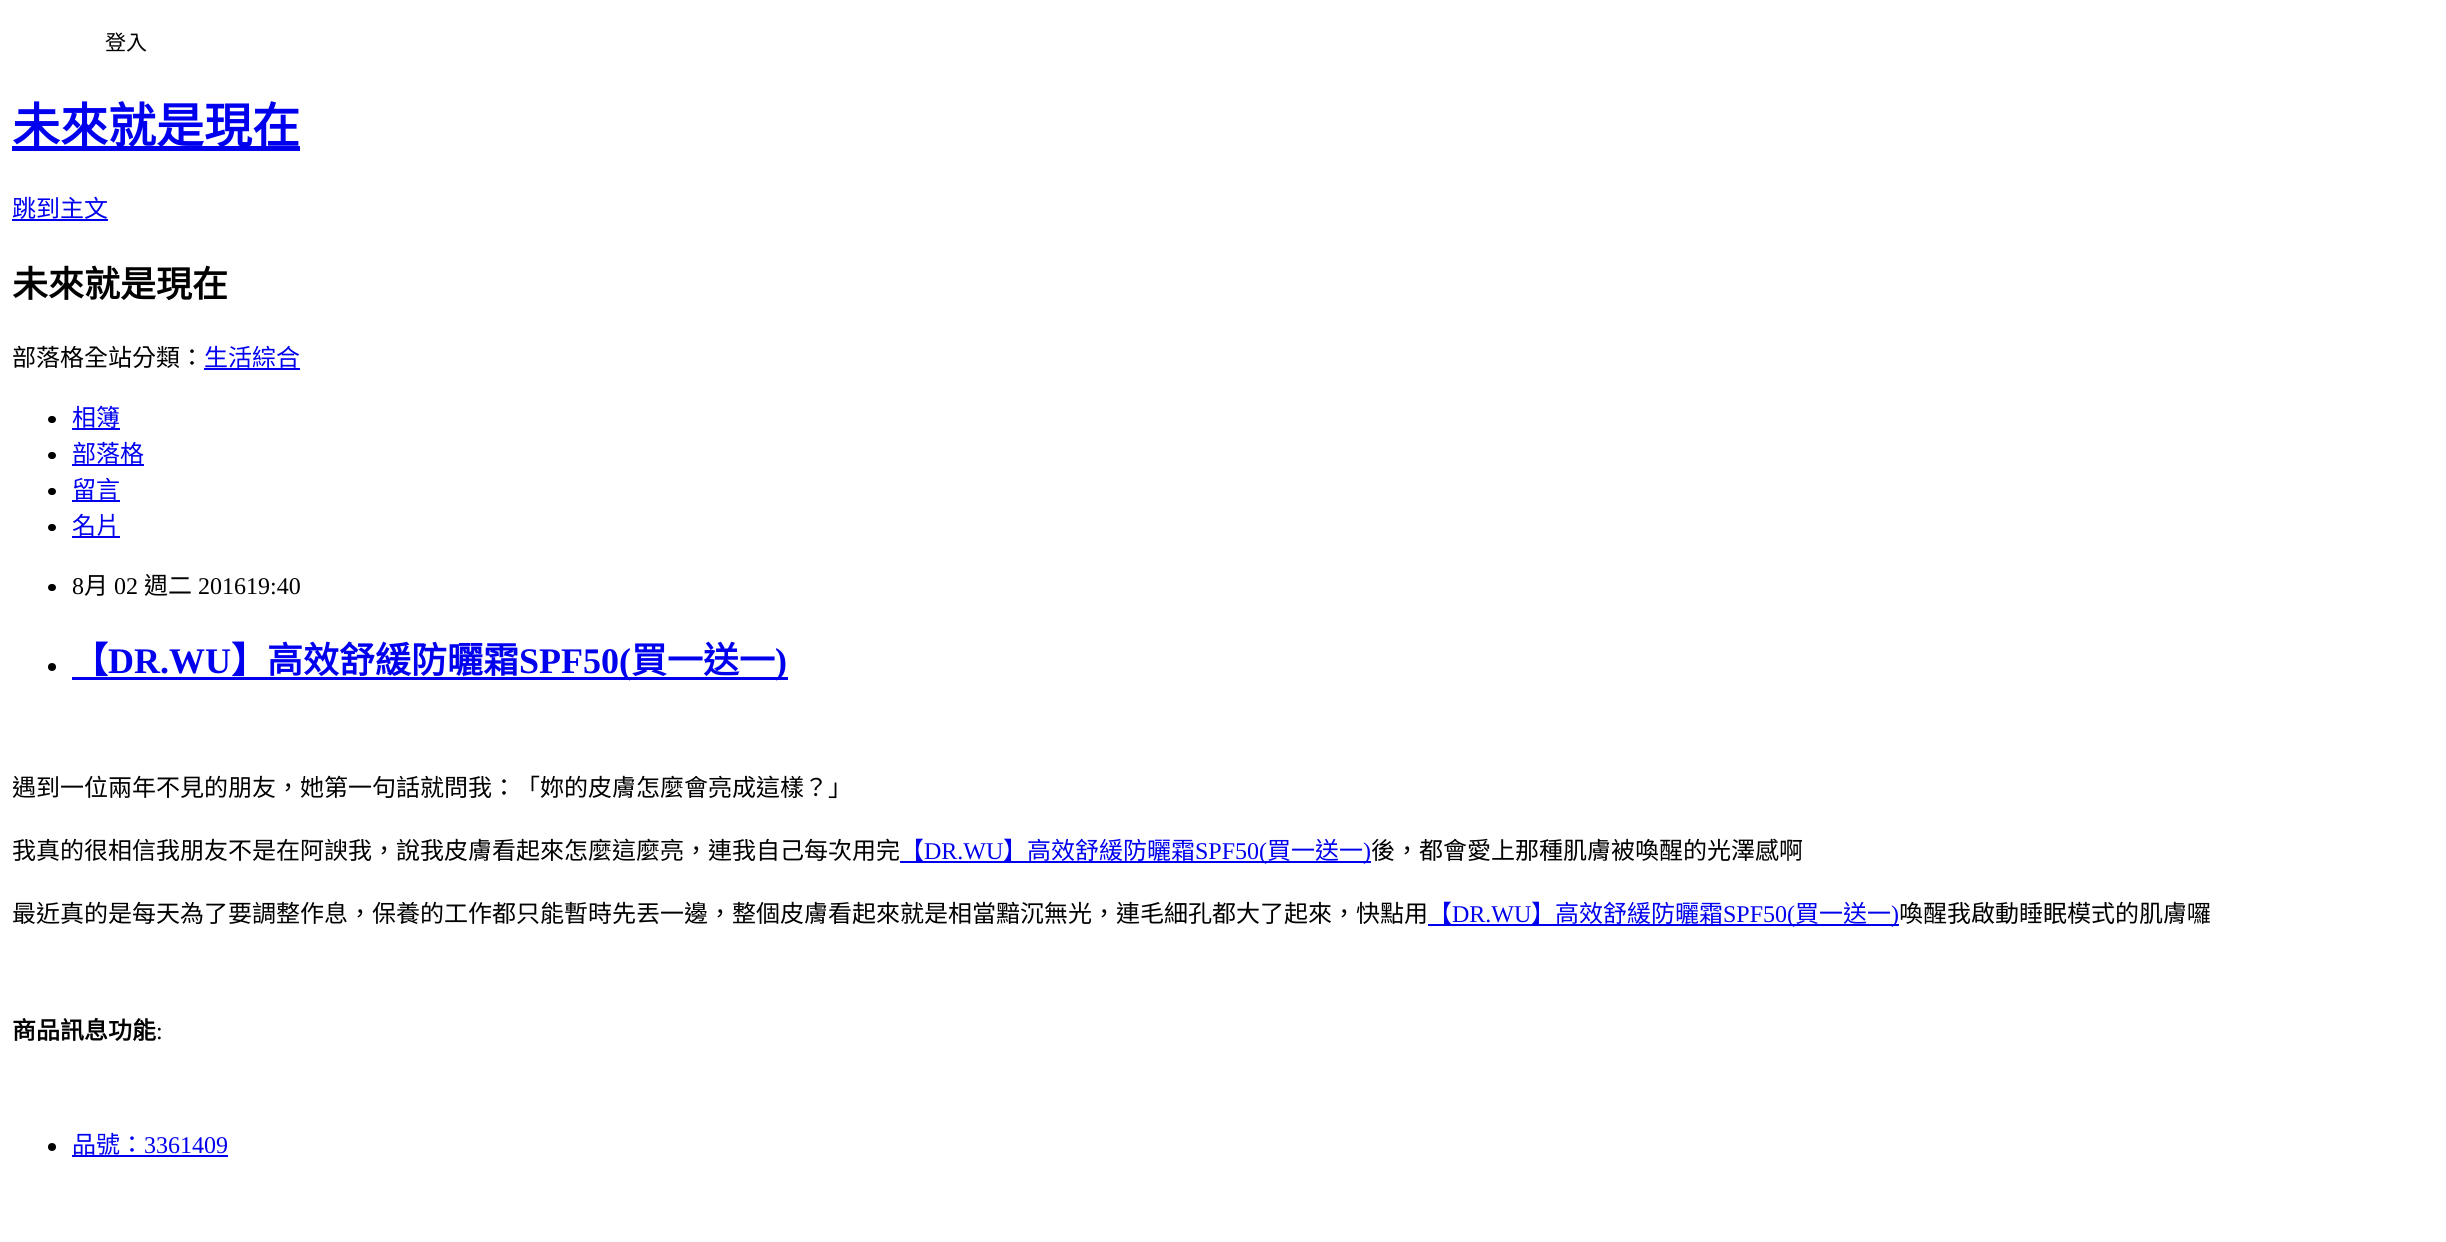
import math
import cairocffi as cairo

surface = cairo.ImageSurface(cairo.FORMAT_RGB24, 2446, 1242)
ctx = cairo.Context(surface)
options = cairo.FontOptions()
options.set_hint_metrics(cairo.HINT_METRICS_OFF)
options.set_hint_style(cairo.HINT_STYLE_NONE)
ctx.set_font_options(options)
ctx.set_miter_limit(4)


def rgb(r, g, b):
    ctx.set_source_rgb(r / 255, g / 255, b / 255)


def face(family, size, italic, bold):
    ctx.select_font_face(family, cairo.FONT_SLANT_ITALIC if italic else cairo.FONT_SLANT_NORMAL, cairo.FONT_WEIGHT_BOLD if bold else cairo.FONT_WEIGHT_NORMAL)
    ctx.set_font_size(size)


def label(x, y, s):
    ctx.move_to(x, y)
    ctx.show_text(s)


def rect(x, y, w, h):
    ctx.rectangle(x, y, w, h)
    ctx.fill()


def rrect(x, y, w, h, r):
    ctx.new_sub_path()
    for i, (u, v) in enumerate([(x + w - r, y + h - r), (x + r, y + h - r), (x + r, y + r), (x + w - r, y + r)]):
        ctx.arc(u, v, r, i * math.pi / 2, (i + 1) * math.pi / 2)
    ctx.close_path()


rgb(255, 255, 255)
ctx.paint()
face('Noto Sans CJK TC', 21, 0, 0)
rgb(0, 0, 0)
label(105, 50, '登入')
rgb(0, 0, 238)
rect(12, 146, 288, 5)
face('Noto Sans CJK TC', 48, 0, 1)
label(12, 143, '未來就是現在')
face('Noto Sans CJK TC', 24, 0, 0)
label(12, 217, '跳到主文')
rect(12, 219, 96, 2)
face('Noto Sans CJK TC', 36, 0, 1)
rgb(0, 0, 0)
label(12, 297, '未來就是現在')
face('Noto Sans CJK TC', 24, 0, 0)
label(12, 366, '部落格全站分類：')
rgb(0, 0, 238)
label(204, 366, '生活綜合')
rect(204, 368, 96, 2)
rgb(0, 0, 0)
rrect(48, 416, 8, 7, 3.5)
ctx.fill()
rgb(0, 0, 238)
label(72, 426, '相簿')
rect(72, 428, 48, 2)
rgb(0, 0, 0)
rrect(48, 452, 8, 7, 3.5)
ctx.fill()
rgb(0, 0, 238)
label(72, 462, '部落格')
rect(72, 464, 72, 2)
rgb(0, 0, 0)
rrect(48, 488, 8, 7, 3.5)
ctx.fill()
rgb(0, 0, 238)
label(72, 498, '留言')
rect(72, 500, 48, 2)
rgb(0, 0, 0)
rrect(48, 524, 8, 7, 3.5)
ctx.fill()
rgb(0, 0, 238)
label(72, 534, '名片')
rect(72, 536, 48, 2)
rgb(0, 0, 0)
rrect(48, 584, 8, 7, 3.5)
ctx.fill()
face('Liberation Serif', 24, 0, 0)
label(72, 594, '8')
face('Noto Sans CJK TC', 24, 0, 0)
label(84, 594, '月')
face('Liberation Serif', 24, 0, 0)
label(114, 594, '02')
face('Noto Sans CJK TC', 24, 0, 0)
label(144, 594, '週二')
face('Liberation Serif', 24, 0, 0)
label(198, 594, '201619:40')
ctx.new_path()
ctx.arc(52, 667, 4, 0, 2 * math.pi)
ctx.fill()
face('Noto Sans CJK TC', 36, 0, 1)
rgb(0, 0, 238)
label(72, 673, '【')
face('Liberation Serif', 36, 0, 1)
label(108, 673, 'DR.WU')
face('Noto Sans CJK TC', 36, 0, 1)
label(231, 673, '】高效舒緩防曬霜')
rect(72, 677, 716, 3)
face('Liberation Serif', 36, 0, 1)
label(519, 673, 'SPF50(')
face('Noto Sans CJK TC', 36, 0, 1)
label(631, 673, '買一送一')
face('Liberation Serif', 36, 0, 1)
label(775, 673, ')')
face('Noto Sans CJK TC', 24, 0, 0)
rgb(0, 0, 0)
label(12, 796, '遇到一位兩年不見的朋友，她第一句話就問我：「妳的皮膚怎麼會亮成這樣？」')
label(12, 859, '我真的很相信我朋友不是在阿諛我，說我皮膚看起來怎麼這麼亮，連我自己每次用完')
rgb(0, 0, 238)
rect(900, 861, 471, 2)
label(900, 859, '【')
face('Liberation Serif', 24, 0, 0)
label(924, 859, 'DR.WU')
face('Noto Sans CJK TC', 24, 0, 0)
label(1003, 859, '】高效舒緩防曬霜')
face('Liberation Serif', 24, 0, 0)
label(1195, 859, 'SPF50(')
face('Noto Sans CJK TC', 24, 0, 0)
label(1267, 859, '買一送一')
face('Liberation Serif', 24, 0, 0)
label(1363, 859, ')')
face('Noto Sans CJK TC', 24, 0, 0)
rgb(0, 0, 0)
label(1371, 859, '後，都會愛上那種肌膚被喚醒的光澤感啊')
label(12, 922, '最近真的是每天為了要調整作息，保養的工作都只能暫時先丟一邊，整個皮膚看起來就是相當黯沉無光，連毛細孔都大了起來，快點用')
rgb(0, 0, 238)
rect(1428, 924, 471, 2)
label(1428, 922, '【')
face('Liberation Serif', 24, 0, 0)
label(1452, 922, 'DR.WU')
face('Noto Sans CJK TC', 24, 0, 0)
label(1531, 922, '】高效舒緩防曬霜')
face('Liberation Serif', 24, 0, 0)
label(1723, 922, 'SPF50(')
face('Noto Sans CJK TC', 24, 0, 0)
label(1795, 922, '買一送一')
face('Liberation Serif', 24, 0, 0)
label(1891, 922, ')')
face('Noto Sans CJK TC', 24, 0, 0)
rgb(0, 0, 0)
label(1899, 922, '喚醒我啟動睡眠模式的肌膚囉')
face('Noto Sans CJK TC', 24, 0, 1)
label(12, 1039, '商品訊息功能')
face('Liberation Serif', 24, 0, 0)
label(156, 1039, ':')
ctx.new_path()
ctx.arc(52, 1147, 4, 0, 2 * math.pi)
ctx.fill()
face('Noto Sans CJK TC', 24, 0, 0)
rgb(0, 0, 238)
label(72, 1153, '品號：')
face('Liberation Serif', 24, 0, 0)
label(144, 1153, '3361409')
rect(72, 1155, 156, 2)
surface.write_to_png('render.png')
